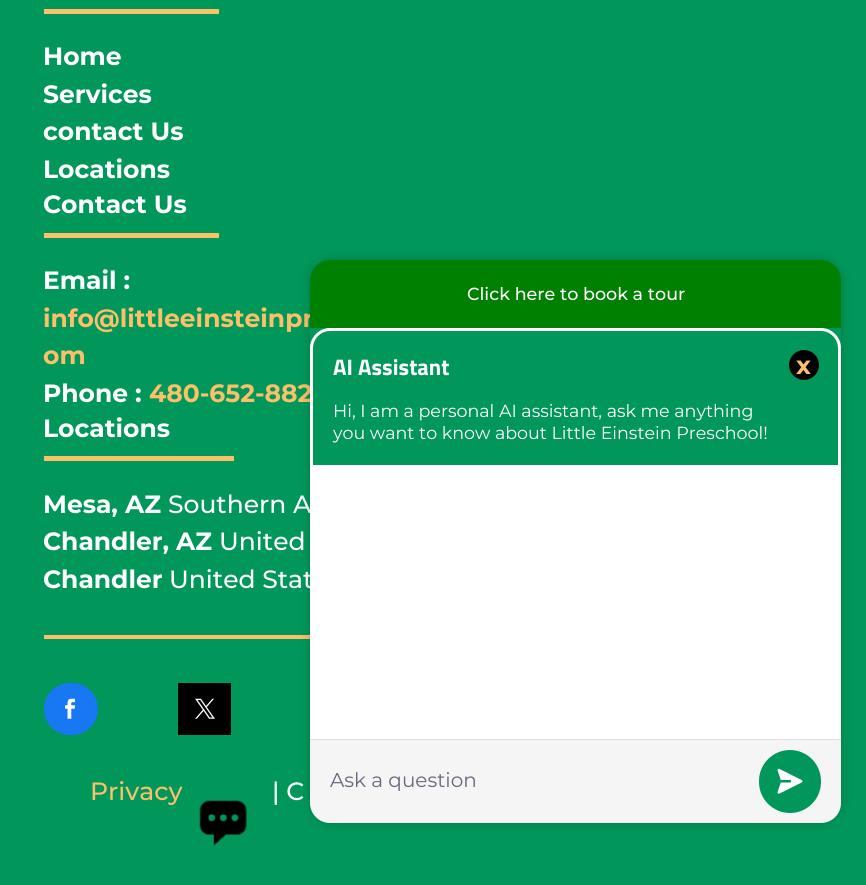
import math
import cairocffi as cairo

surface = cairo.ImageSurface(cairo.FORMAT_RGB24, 866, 885)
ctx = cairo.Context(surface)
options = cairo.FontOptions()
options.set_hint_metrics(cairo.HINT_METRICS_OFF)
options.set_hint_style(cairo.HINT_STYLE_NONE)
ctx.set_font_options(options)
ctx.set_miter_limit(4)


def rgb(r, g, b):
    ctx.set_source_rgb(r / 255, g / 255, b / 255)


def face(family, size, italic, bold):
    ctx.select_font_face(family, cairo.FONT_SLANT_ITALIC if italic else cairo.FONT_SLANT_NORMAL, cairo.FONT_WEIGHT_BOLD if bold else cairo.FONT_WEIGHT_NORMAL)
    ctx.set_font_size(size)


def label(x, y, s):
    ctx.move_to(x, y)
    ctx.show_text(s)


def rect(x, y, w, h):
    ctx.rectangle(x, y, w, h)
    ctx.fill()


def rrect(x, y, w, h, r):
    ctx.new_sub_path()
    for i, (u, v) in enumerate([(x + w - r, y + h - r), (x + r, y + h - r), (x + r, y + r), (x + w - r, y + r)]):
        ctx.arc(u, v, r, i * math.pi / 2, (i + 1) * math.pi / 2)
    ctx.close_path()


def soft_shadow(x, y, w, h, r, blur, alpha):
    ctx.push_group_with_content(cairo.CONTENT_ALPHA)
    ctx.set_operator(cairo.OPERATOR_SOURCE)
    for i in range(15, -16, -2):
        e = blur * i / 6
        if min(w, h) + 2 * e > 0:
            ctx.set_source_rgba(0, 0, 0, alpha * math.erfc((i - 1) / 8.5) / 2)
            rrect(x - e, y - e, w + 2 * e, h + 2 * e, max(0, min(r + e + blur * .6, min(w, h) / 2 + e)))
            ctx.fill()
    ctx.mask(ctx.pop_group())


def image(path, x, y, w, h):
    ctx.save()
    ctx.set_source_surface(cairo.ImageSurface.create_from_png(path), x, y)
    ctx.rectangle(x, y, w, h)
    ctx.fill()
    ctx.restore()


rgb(1, 151, 90)
ctx.paint()
rgb(251, 192, 105)
rect(44, 9, 175, 5)
face('Montserrat', 25, 0, 1)
rgb(255, 255, 255)
label(43, 65, 'Home')
label(43, 103, 'Services')
label(43, 140, 'contact Us')
label(43, 178, 'Locations')
label(43, 213, 'Contact Us')
rgb(251, 192, 105)
rect(44, 233, 175, 5)
rgb(255, 255, 255)
label(43, 289, 'Email :')
rgb(251, 192, 105)
label(43, 327, 'info@littleeinsteinpr')
label(43, 364, 'om')
rgb(255, 255, 255)
label(43, 402, 'Phone :')
rgb(251, 192, 105)
label(149, 402, '480-652-882')
rgb(255, 255, 255)
label(43, 437, 'Locations')
rgb(251, 192, 105)
rect(44, 456, 190, 5)
rgb(255, 255, 255)
label(43, 513, 'Mesa, AZ')
face('Montserrat Medium', 25, 0, 0)
label(168, 513, 'Southern A')
face('Montserrat', 25, 0, 1)
label(43, 550, 'Chandler, AZ')
face('Montserrat Medium', 25, 0, 0)
label(219, 550, 'United')
face('Montserrat', 25, 0, 1)
label(43, 588, 'Chandler')
face('Montserrat Medium', 25, 0, 0)
label(169, 588, 'United Stat')
rgb(251, 192, 105)
rect(44, 635, 266, 4)
rgb(24, 119, 242)
rrect(44, 683, 54, 52, 26)
ctx.fill()
image('image0.png', 65, 698, 10, 21)
rgb(0, 0, 0)
rect(178, 683, 53, 52)
image('image1.png', 195, 698, 20, 21)
rgb(251, 192, 105)
label(90, 800, 'Privacy')
rgb(255, 255, 255)
label(272, 800, '| C')
rgb(0, 0, 0)
soft_shadow(310, 260, 531, 563, 20, 6, 0.2)
rgb(1, 151, 90)
rrect(310, 260, 531, 563, 20)
ctx.fill()
rgb(0, 128, 0)
ctx.new_path()
ctx.move_to(330, 260)
ctx.line_to(821, 260)
ctx.curve_to(832, 260, 841, 269, 841, 280)
ctx.line_to(841, 328)
ctx.line_to(310, 328)
ctx.line_to(310, 280)
ctx.curve_to(310, 269, 319, 260, 330, 260)
ctx.close_path()
ctx.fill()
face('Montserrat Medium', 17.5, 0, 0)
rgb(255, 255, 255)
label(467, 300, 'Click here to book a tour')
ctx.new_path()
ctx.move_to(330, 329.5)
ctx.line_to(821, 329.5)
ctx.curve_to(831, 329.5, 839.5, 338, 839.5, 348)
ctx.line_to(839.5, 466.5)
ctx.line_to(311.5, 466.5)
ctx.line_to(311.5, 348)
ctx.curve_to(311.5, 338, 320, 329.5, 330, 329.5)
ctx.close_path()
ctx.set_line_width(3)
ctx.stroke()
face('Titillium Web', 22.5, 0, 1)
label(333, 375, 'AI Assistant')
face('Montserrat', 17.5, 0, 0)
label(333, 417, 'Hi, I am a personal AI assistant, ask me anything')
label(333, 439, 'you want to know about Little Einstein Preschool!')
rgb(0, 0, 0)
ctx.new_path()
ctx.arc(804, 365, 15, 0, 2 * math.pi)
ctx.fill()
face('Montserrat', 25, 0, 1)
rgb(251, 192, 105)
label(796, 374, 'x')
rgb(255, 255, 255)
rect(310, 468, 531, 271)
rgb(245, 245, 245)
ctx.new_path()
ctx.move_to(310, 739)
ctx.line_to(841, 739)
ctx.line_to(841, 803)
ctx.curve_to(841, 814, 832, 823, 821, 823)
ctx.line_to(330, 823)
ctx.curve_to(319, 823, 310, 814, 310, 803)
ctx.close_path()
ctx.fill()
rgb(224, 224, 224)
rect(310, 739, 531, 1)
face('Montserrat', 20, 0, 0)
rgb(106, 103, 124)
label(330, 787, 'Ask a question')
rgb(1, 151, 90)
rrect(759, 750, 62, 63, 31)
ctx.fill()
image('image2.png', 777, 768, 26, 26)
image('image3.png', 199, 800, 48, 46)
surface.write_to_png('render.png')
